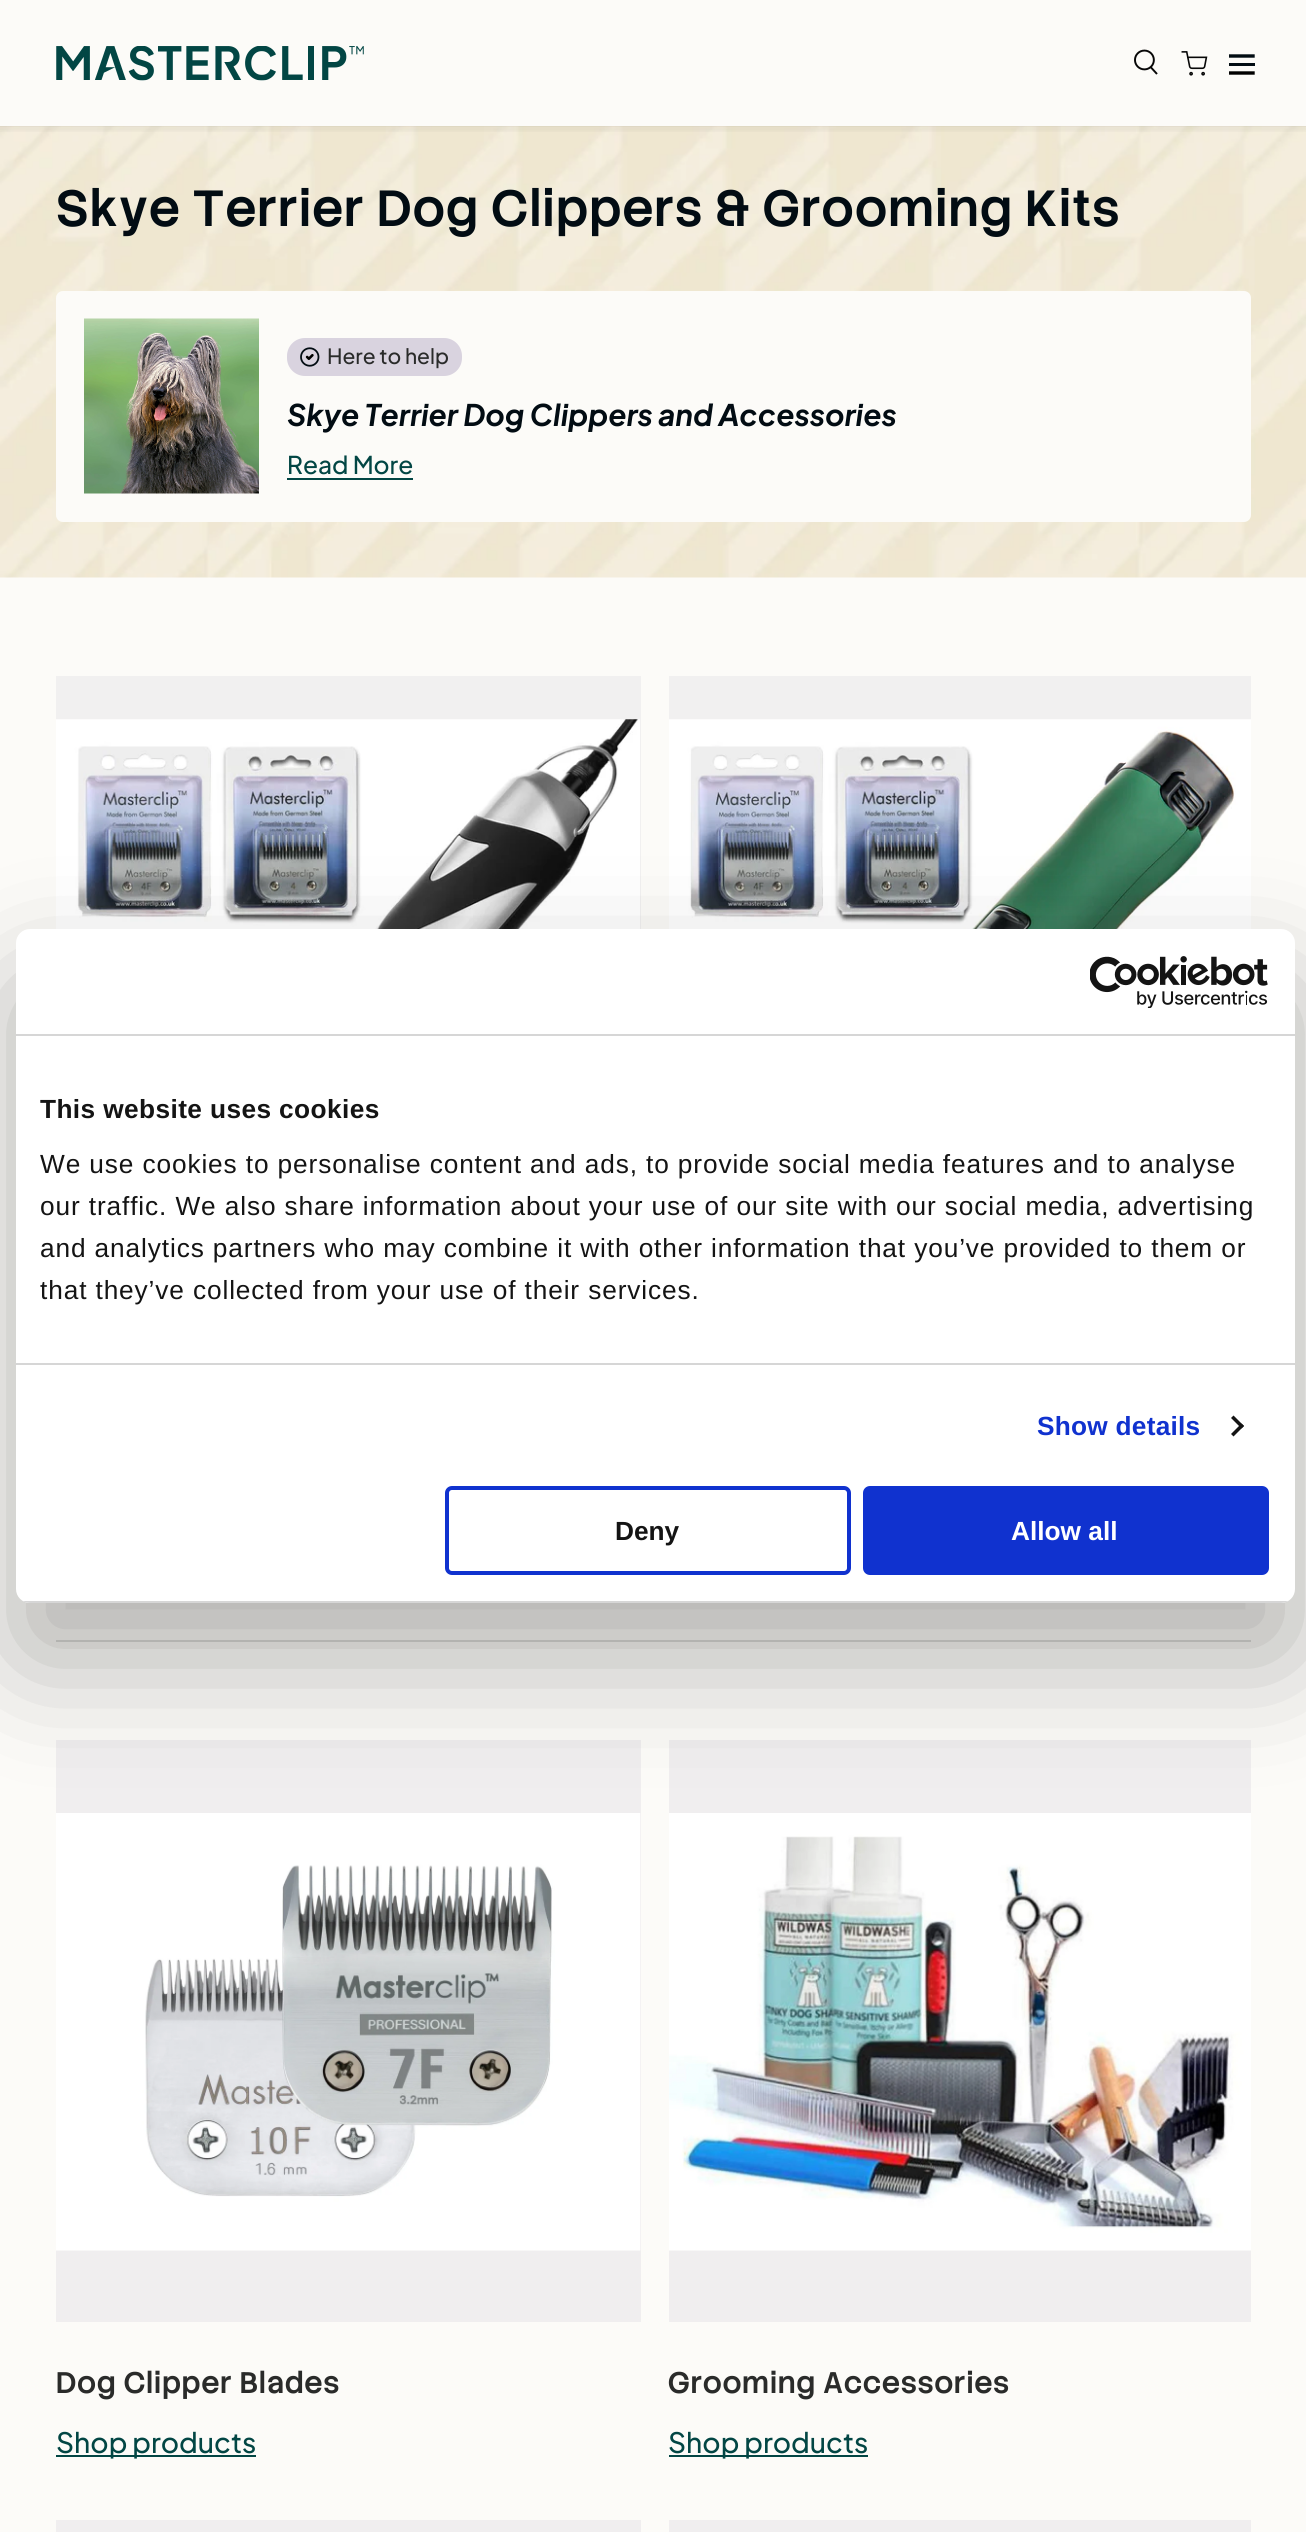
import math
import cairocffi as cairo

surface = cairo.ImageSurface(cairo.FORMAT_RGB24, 1306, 2532)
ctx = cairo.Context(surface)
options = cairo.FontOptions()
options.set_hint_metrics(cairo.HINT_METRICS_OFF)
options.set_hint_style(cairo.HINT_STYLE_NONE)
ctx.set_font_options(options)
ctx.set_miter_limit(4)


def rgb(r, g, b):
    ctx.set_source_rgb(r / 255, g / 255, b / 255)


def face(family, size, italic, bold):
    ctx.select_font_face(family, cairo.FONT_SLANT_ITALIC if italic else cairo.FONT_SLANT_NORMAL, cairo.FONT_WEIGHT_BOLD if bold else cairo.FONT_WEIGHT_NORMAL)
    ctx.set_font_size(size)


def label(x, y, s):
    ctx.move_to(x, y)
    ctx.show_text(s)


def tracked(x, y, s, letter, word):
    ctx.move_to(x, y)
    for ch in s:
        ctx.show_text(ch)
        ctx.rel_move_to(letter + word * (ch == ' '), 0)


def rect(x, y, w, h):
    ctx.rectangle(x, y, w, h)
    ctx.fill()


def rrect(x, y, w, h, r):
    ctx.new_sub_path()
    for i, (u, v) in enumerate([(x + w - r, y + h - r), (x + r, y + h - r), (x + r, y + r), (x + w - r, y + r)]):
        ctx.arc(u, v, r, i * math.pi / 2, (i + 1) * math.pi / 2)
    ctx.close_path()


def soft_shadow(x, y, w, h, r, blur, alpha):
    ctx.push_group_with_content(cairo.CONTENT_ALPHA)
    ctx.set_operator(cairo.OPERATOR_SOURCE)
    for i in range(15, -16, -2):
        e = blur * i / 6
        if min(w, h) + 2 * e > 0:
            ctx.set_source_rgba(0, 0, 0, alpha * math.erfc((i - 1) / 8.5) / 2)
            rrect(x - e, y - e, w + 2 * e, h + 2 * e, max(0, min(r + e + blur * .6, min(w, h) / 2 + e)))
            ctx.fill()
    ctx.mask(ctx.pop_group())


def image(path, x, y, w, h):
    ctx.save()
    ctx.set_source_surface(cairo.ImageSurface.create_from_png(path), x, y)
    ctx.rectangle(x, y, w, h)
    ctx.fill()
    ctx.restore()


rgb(252, 251, 248)
ctx.paint()
image('image3.png', 0, 126, 1306, 452)
ctx.save()
ctx.rectangle(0, 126, 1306, 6)
ctx.clip()
rgb(0, 0, 0)
soft_shadow(-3, -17, 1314, 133, 0, 9.5, 0.44)
ctx.restore()
image('image0.png', 56, 46, 308, 35)
image('image1.png', 1134, 49, 24, 26)
image('image2.png', 1181, 51, 27, 25)
ctx.save()
ctx.rectangle(1229, 54, 26, 21)
ctx.clip()
ctx.new_path()
ctx.move_to(1230, 56)
ctx.line_to(1253, 56)
rgb(2, 12, 19)
ctx.set_line_width(3.4)
ctx.set_line_cap(cairo.LINE_CAP_SQUARE)
ctx.stroke()
ctx.restore()
rgb(2, 12, 19)
rect(1229, 63, 26, 3)
ctx.save()
ctx.rectangle(1229, 54, 26, 21)
ctx.clip()
ctx.new_path()
ctx.move_to(1230, 73)
ctx.line_to(1253, 73)
rgb(0, 0, 0)
ctx.set_line_width(3.4)
ctx.set_line_cap(cairo.LINE_CAP_SQUARE)
ctx.stroke()
ctx.restore()
face('Stack Sans Headline Medium', 50.75, 0, 0)
tracked(56, 226, 'Skye Terrier Dog Clippers & Grooming Kits', 1.6, 0)
rgb(252, 251, 248)
rrect(56, 291, 1195, 231, 7)
ctx.fill()
image('image4.png', 84, 318, 175, 176)
rgb(217, 211, 223)
rrect(287, 338, 175, 38, 18)
ctx.fill()
image('image5.png', 300, 347, 20, 20)
face('Plus Jakarta Sans Medium', 21, 0, 0)
rgb(42, 43, 42)
label(327, 364, 'Here to help')
face('Plus Jakarta Sans', 29.75, 1, 1)
rgb(2, 12, 19)
label(287, 426, 'Skye Terrier Dog Clippers and Accessories')
face('Plus Jakarta Sans Medium', 24.5, 0, 0)
rgb(2, 70, 68)
label(287, 474, 'Read More')
rect(287, 478, 126, 2)
rgb(241, 240, 240)
rect(56, 676, 585, 253)
image('image6.png', 56, 719, 584, 210)
rect(669, 676, 582, 44)
image('image7.png', 669, 719, 582, 210)
rgb(221, 220, 217)
rect(56, 1640, 1195, 2)
rgb(240, 238, 239)
rect(56, 1740, 585, 582)
image('image8.png', 56, 1813, 585, 438)
face('Stack Sans Headline Medium', 29.75, 0, 0)
rgb(42, 43, 42)
tracked(56, 2393, 'Dog Clipper Blades', 1.1, 0)
rgb(2, 70, 68)
rect(56, 2455, 200, 2)
face('Plus Jakarta Sans Medium', 28, 0, 0)
label(56, 2453, 'Shop products')
rgb(240, 238, 239)
rect(669, 1740, 582, 582)
image('image9.png', 669, 1813, 582, 438)
face('Stack Sans Headline Medium', 29.75, 0, 0)
rgb(42, 43, 42)
tracked(668, 2393, 'Grooming Accessories', 1.1, 0)
rgb(2, 70, 68)
rect(669, 2455, 199, 2)
face('Plus Jakarta Sans Medium', 28, 0, 0)
label(668, 2453, 'Shop products')
rgb(240, 238, 239)
rect(56, 2520, 585, 12)
rect(669, 2520, 582, 12)
rgb(0, 0, 0)
soft_shadow(16, 985, 1279, 674, 14, 59.5, 0.3)
rgb(255, 255, 255)
rrect(16, 929, 1279, 674, 14)
ctx.fill()
rgb(214, 214, 214)
rect(16, 1034, 1279, 2)
image('image10.png', 1090, 956, 178, 52)
rect(16, 1363, 1279, 2)
face('Liberation Sans', 26.25, 0, 1)
rgb(20, 20, 20)
tracked(40, 1118, 'This website uses cookies', 0.4, 0)
face('Liberation Sans', 26.25, 0, 0)
tracked(40, 1173, 'We use cookies to personalise content and ads, to provide social media features and to analyse', 0.88, 0)
tracked(40, 1215, 'our traffic. We also share information about your use of our site with our social media, advertising', 0.88, 0)
tracked(40, 1257, 'and analytics partners who may combine it with other information that you’ve provided to them or', 0.88, 0)
tracked(40, 1299, 'that they’ve collected from your use of their services.', 0.88, 0)
face('Liberation Sans', 26.25, 0, 1)
rgb(16, 50, 207)
tracked(1037, 1435, 'Show details', 0.25, 0)
rgb(20, 20, 20)
ctx.new_path()
ctx.move_to(1233.5, 1415.5)
ctx.line_to(1244, 1426)
ctx.line_to(1241.5, 1428.5)
ctx.line_to(1231, 1418)
ctx.close_path()
ctx.fill()
ctx.new_path()
ctx.move_to(1241.5, 1423.5)
ctx.line_to(1244, 1426)
ctx.line_to(1233.5, 1436.5)
ctx.line_to(1231, 1434)
ctx.close_path()
ctx.fill()
ctx.save()
rrect(16, 929, 1279, 674, 14)
ctx.clip()
rgb(214, 214, 214)
rect(16, 1601, 1279, 2)
ctx.restore()
rrect(447, 1488, 402, 85, 5)
rgb(16, 50, 207)
ctx.set_line_width(4)
ctx.stroke()
rgb(20, 20, 20)
label(615, 1540, 'Deny')
rgb(16, 50, 207)
rrect(865, 1488, 402, 85, 5)
ctx.fill_preserve()
ctx.stroke()
rgb(255, 255, 255)
label(1011, 1540, 'Allow all')
surface.write_to_png('render.png')
